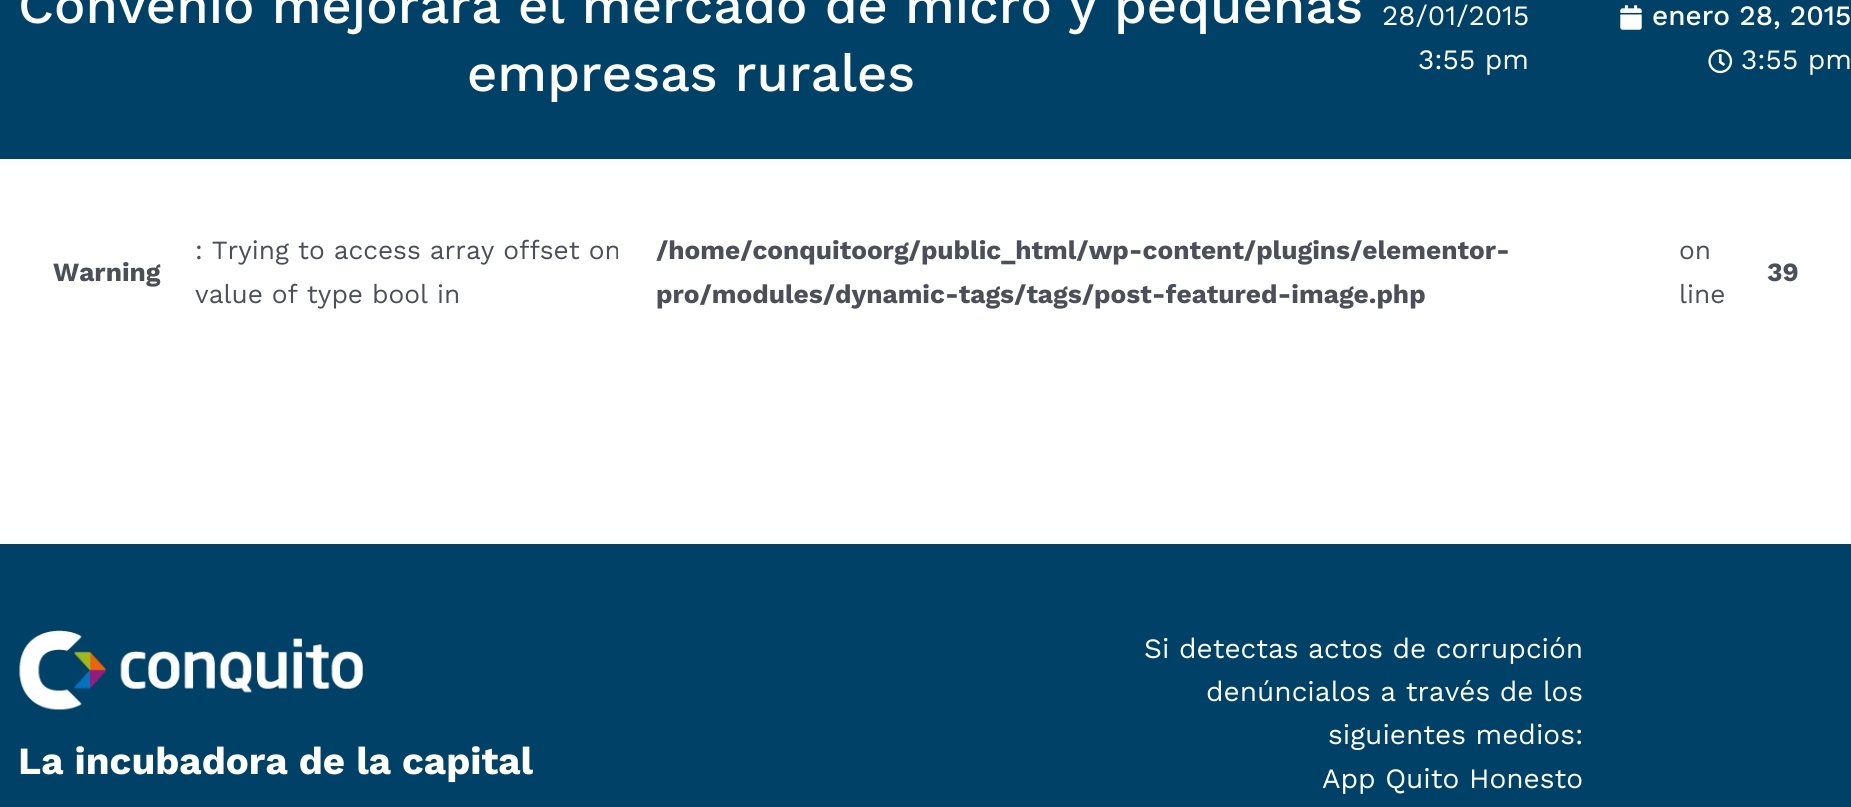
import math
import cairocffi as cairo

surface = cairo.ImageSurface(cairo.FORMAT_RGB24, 1851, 807)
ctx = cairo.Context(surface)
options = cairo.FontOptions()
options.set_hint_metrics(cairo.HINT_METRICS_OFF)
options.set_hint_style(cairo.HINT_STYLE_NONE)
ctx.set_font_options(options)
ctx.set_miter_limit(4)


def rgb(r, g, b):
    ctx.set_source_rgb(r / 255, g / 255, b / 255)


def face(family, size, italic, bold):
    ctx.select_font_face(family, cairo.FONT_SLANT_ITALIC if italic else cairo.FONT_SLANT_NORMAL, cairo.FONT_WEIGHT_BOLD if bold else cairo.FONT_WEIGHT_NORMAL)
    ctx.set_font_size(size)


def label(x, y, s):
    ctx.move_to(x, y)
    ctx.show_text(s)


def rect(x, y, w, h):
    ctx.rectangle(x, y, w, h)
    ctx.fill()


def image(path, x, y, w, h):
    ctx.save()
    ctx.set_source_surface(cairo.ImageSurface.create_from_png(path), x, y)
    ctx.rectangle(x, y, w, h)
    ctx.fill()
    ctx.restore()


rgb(255, 255, 255)
ctx.paint()
rgb(0, 65, 103)
rect(0, 0, 1851, 159)
face('Work Sans Medium', 52.5, 0, 0)
rgb(255, 255, 255)
label(18, 23, 'Convenio mejorará el mercado de micro y pequeñas')
label(467, 91, 'empresas rurales')
face('Work Sans', 28, 0, 0)
label(1382, 25, '28/01/2015')
label(1418, 69, '3:55 pm')
image('image0.png', 1620, 5, 22, 25)
face('Work Sans Medium', 28, 0, 0)
label(1652, 25, 'enero 28, 2015')
image('image1.png', 1708, 49, 25, 25)
face('Work Sans', 28, 0, 0)
label(1741, 69, '3:55 pm')
face('Work Sans', 26.25, 0, 0)
rgb(75, 79, 88)
label(195, 259, ': Trying to access array offset on')
face('Work Sans', 26.25, 0, 1)
label(656, 259, '/home/conquitoorg/public_html/wp-content/plugins/elementor-')
label(656, 303, 'pro/modules/dynamic-tags/tags/post-featured-image.php')
face('Work Sans', 26.25, 0, 0)
label(1679, 259, 'on')
face('Work Sans', 26.25, 0, 1)
label(53, 281, 'Warning')
label(1767, 281, '39')
face('Work Sans', 26.25, 0, 0)
label(195, 303, 'value of type bool in')
label(1679, 303, 'line')
rgb(0, 65, 103)
rect(0, 544, 1851, 263)
image('image2.png', 19, 630, 344, 80)
face('Work Sans', 38.5, 0, 1)
rgb(255, 255, 255)
label(18, 774, 'La incubadora de la capital')
face('Work Sans', 28, 0, 0)
label(1144, 658, 'Si detectas actos de corrupción')
label(1206, 701, 'denúncialos a través de los')
label(1328, 744, 'siguientes medios:')
label(1322, 788, 'App Quito Honesto')
surface.write_to_png('render.png')
